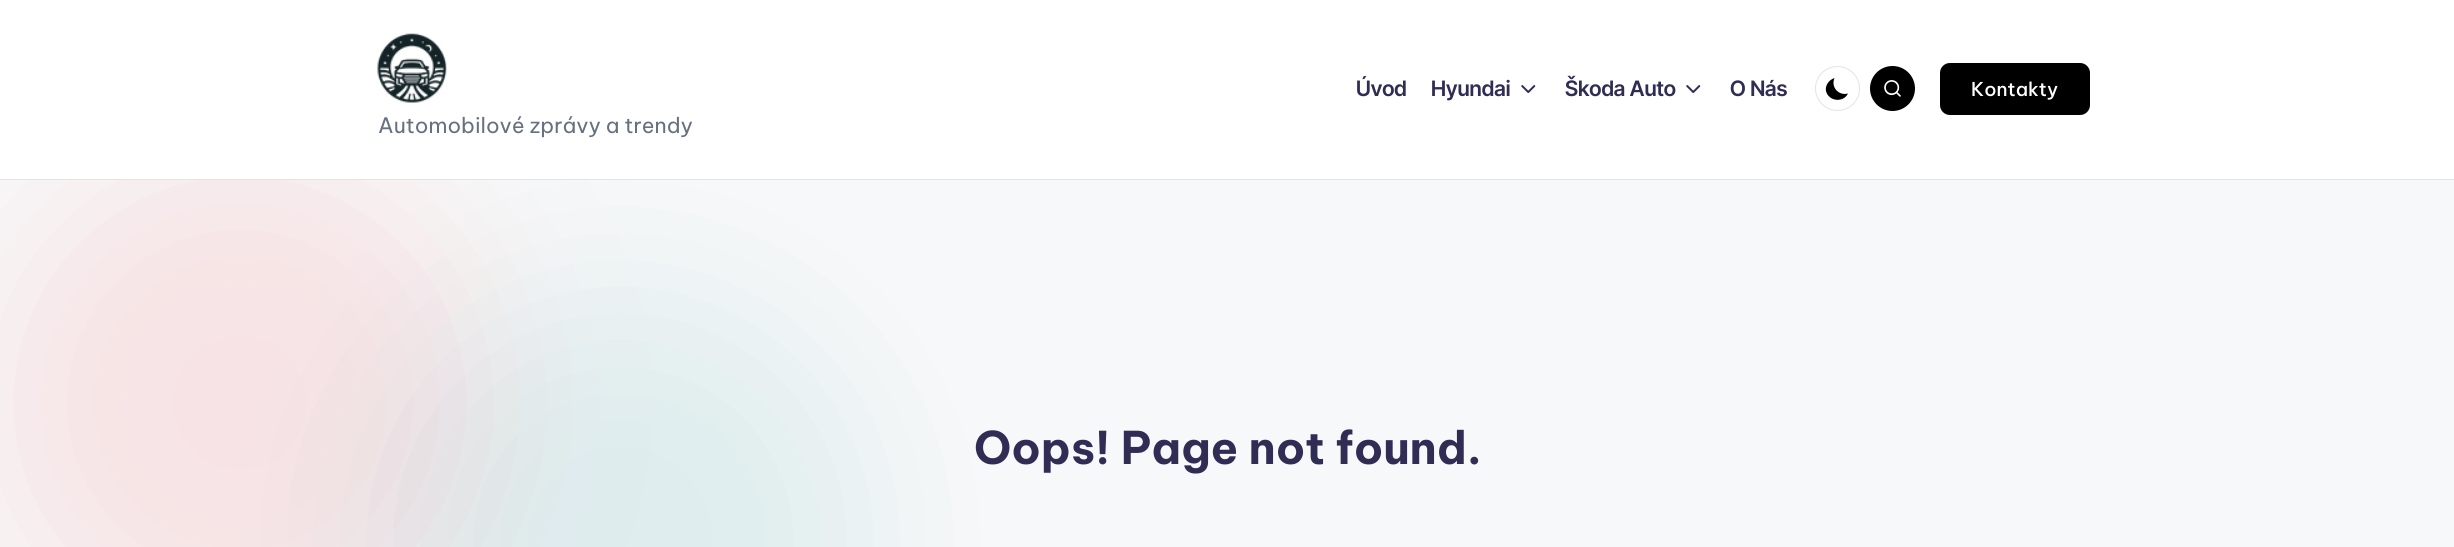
import math
import cairocffi as cairo

surface = cairo.ImageSurface(cairo.FORMAT_RGB24, 2454, 547)
ctx = cairo.Context(surface)
options = cairo.FontOptions()
options.set_hint_metrics(cairo.HINT_METRICS_OFF)
options.set_hint_style(cairo.HINT_STYLE_NONE)
ctx.set_font_options(options)
ctx.set_miter_limit(4)


def rgb(r, g, b):
    ctx.set_source_rgb(r / 255, g / 255, b / 255)


def face(family, size, italic, bold):
    ctx.select_font_face(family, cairo.FONT_SLANT_ITALIC if italic else cairo.FONT_SLANT_NORMAL, cairo.FONT_WEIGHT_BOLD if bold else cairo.FONT_WEIGHT_NORMAL)
    ctx.set_font_size(size)


def label(x, y, s):
    ctx.move_to(x, y)
    ctx.show_text(s)


def rect(x, y, w, h):
    ctx.rectangle(x, y, w, h)
    ctx.fill()


def rrect(x, y, w, h, r):
    ctx.new_sub_path()
    for i, (u, v) in enumerate([(x + w - r, y + h - r), (x + r, y + h - r), (x + r, y + r), (x + w - r, y + r)]):
        ctx.arc(u, v, r, i * math.pi / 2, (i + 1) * math.pi / 2)
    ctx.close_path()


def soft_shadow(x, y, w, h, r, blur, alpha):
    ctx.push_group_with_content(cairo.CONTENT_ALPHA)
    ctx.set_operator(cairo.OPERATOR_SOURCE)
    for i in range(15, -16, -2):
        e = blur * i / 6
        if min(w, h) + 2 * e > 0:
            ctx.set_source_rgba(0, 0, 0, alpha * math.erfc((i - 1) / 8.5) / 2)
            rrect(x - e, y - e, w + 2 * e, h + 2 * e, max(0, min(r + e + blur * .6, min(w, h) / 2 + e)))
            ctx.fill()
    ctx.mask(ctx.pop_group())


def image(path, x, y, w, h):
    ctx.save()
    ctx.set_source_surface(cairo.ImageSurface.create_from_png(path), x, y)
    ctx.rectangle(x, y, w, h)
    ctx.fill()
    ctx.restore()


rgb(247, 248, 249)
ctx.paint()
rgb(247, 227, 229)
soft_shadow(0, 163, 480, 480, 240, 80, 1)
rgb(4, 134, 139)
soft_shadow(380, 300, 480, 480, 240, 80, 0.1)
rgb(255, 255, 255)
rect(0, 0, 2454, 179)
rgb(227, 227, 227)
rect(0, 179, 2454, 1)
face('Inter Tight SemiBold', 21.25, 0, 0)
rgb(48, 45, 85)
label(1356, 96, 'Úvod')
label(1431, 96, 'Hyundai')
image('image0.png', 1521, 85, 15, 8)
label(1565, 96, 'Škoda Auto')
image('image0.png', 1686, 85, 15, 8)
label(1730, 96, 'O Nás')
ctx.new_path()
ctx.arc(1837.5, 88.5, 22, 0, 2 * math.pi)
rgb(227, 227, 227)
ctx.set_line_width(1)
ctx.stroke()
rgb(0, 0, 0)
ctx.new_path()
ctx.move_to(1848, 93.5)
ctx.curve_to(1839, 96, 1830.5, 87.5, 1834.5, 78)
ctx.curve_to(1831.5, 79, 1829, 81, 1827.5, 83.5)
ctx.curve_to(1826, 86, 1825.5, 88.5, 1826, 91)
ctx.curve_to(1828.5, 101.5, 1843.5, 103, 1848, 93.5)
ctx.close_path()
ctx.fill()
ctx.arc(1892.5, 88.5, 22.5, 0, 2 * math.pi)
ctx.fill()
image('image1.png', 1884, 80, 17, 17)
rrect(1940, 63, 150, 52, 10)
ctx.fill()
rrect(1940.5, 63.5, 149, 51, 9.5)
ctx.set_source_rgba(0, 0, 0, 0.12)
ctx.stroke()
face('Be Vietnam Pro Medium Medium', 19, 0, 0)
rgb(255, 255, 255)
label(1971, 96, 'Kontakty')
image('image2.png', 377, 33, 70, 70)
face('Be Vietnam Pro', 21.25, 0, 0)
rgb(102, 113, 127)
label(378, 133, 'Automobilové zprávy a trendy')
face('Be Vietnam Pro', 45, 0, 1)
rgb(48, 45, 85)
label(974, 464, 'Oops! Page not found.')
surface.write_to_png('render.png')
